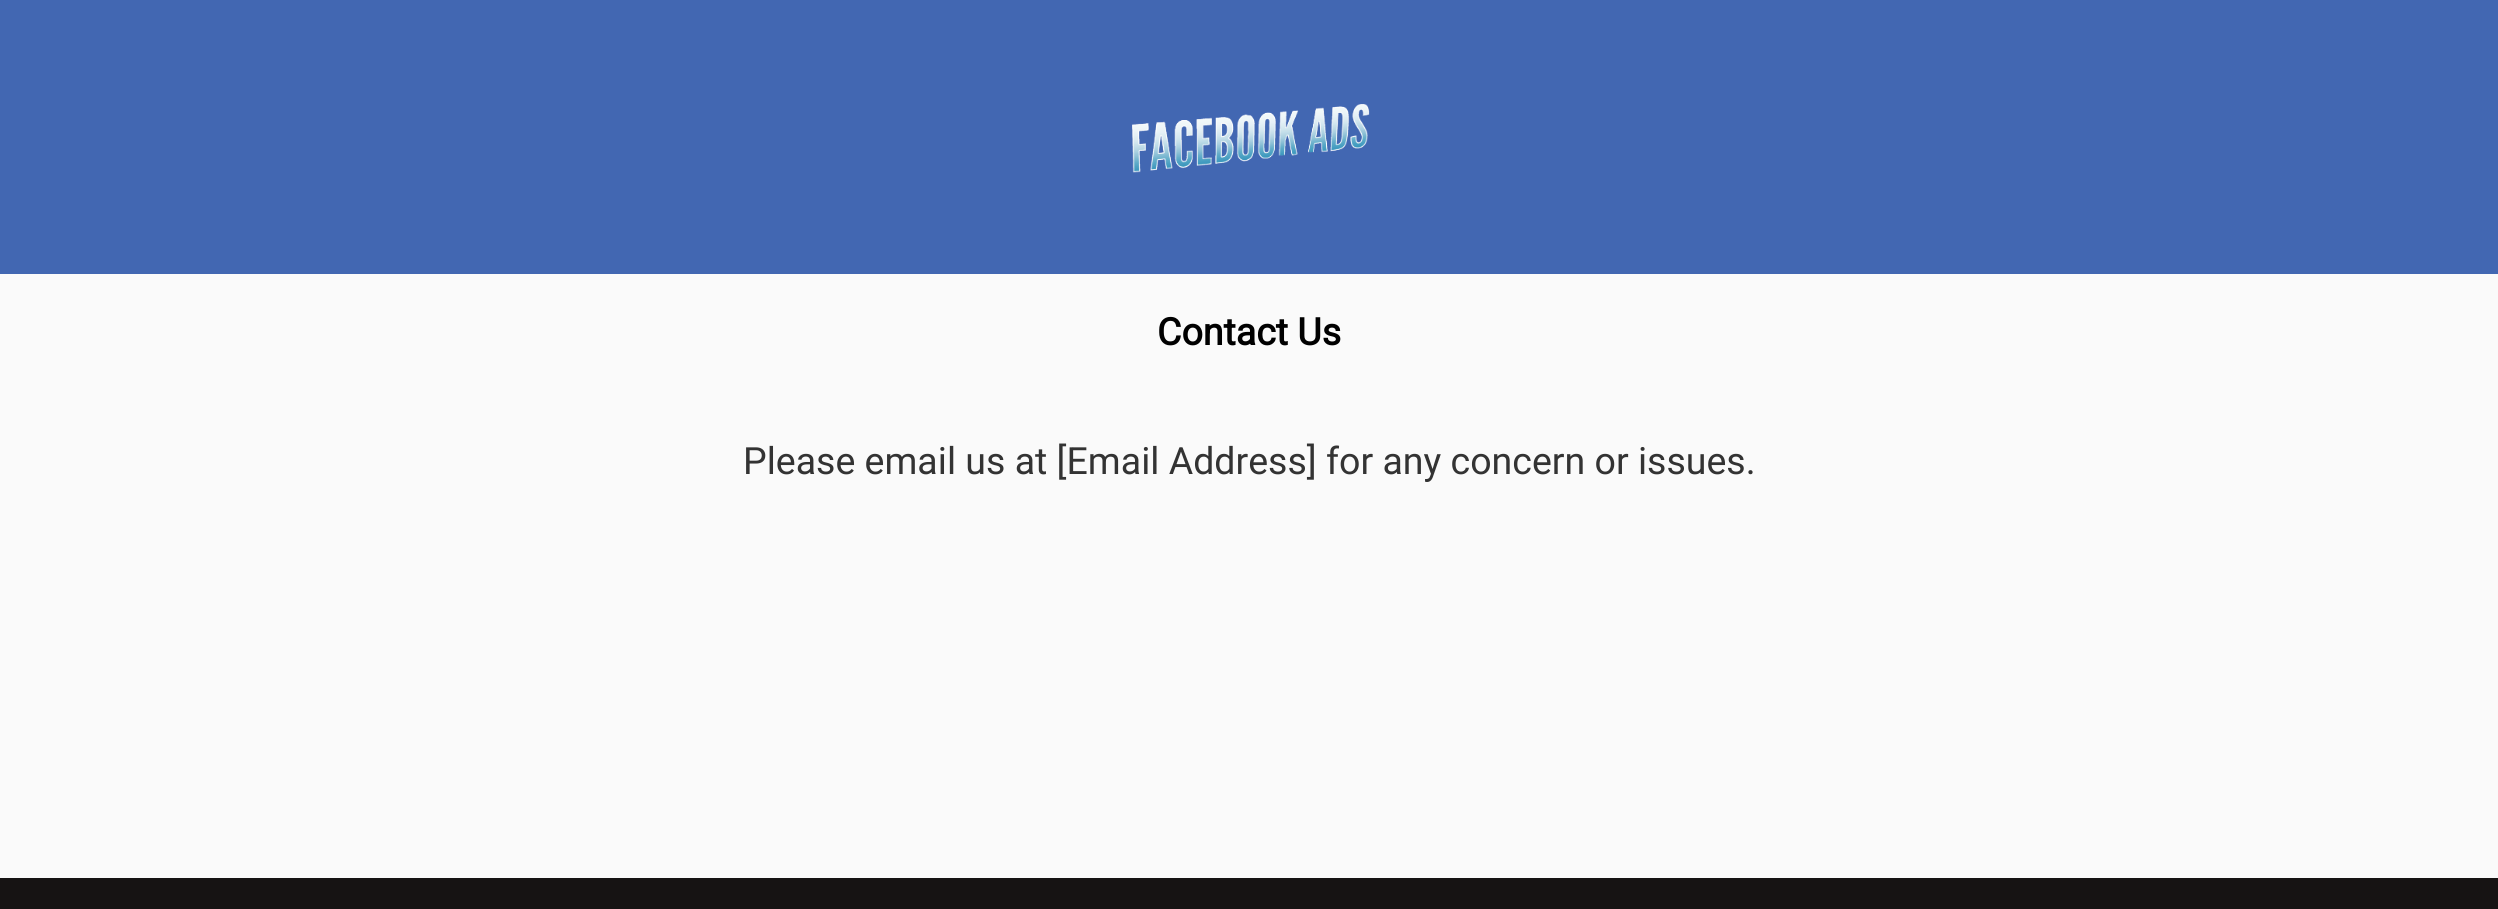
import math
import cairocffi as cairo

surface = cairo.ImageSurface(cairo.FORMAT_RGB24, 2498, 909)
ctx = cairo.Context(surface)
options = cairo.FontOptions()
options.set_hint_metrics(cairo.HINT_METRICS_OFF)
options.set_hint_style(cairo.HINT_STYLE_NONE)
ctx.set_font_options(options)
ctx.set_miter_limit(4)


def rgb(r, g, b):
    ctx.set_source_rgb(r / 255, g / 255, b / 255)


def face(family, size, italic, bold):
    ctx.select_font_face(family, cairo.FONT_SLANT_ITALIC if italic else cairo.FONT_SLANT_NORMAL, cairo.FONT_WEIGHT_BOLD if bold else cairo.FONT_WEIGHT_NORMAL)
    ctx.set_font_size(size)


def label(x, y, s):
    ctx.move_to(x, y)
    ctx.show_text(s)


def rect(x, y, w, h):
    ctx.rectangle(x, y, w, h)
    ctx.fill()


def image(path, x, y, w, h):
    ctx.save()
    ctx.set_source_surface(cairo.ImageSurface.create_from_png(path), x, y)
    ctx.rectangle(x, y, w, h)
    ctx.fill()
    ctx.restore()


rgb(66, 103, 178)
ctx.paint()
image('image0.png', 1132, 104, 238, 69)
rgb(250, 250, 250)
rect(0, 274, 2498, 604)
face('Roboto', 37.5, 0, 1)
rgb(0, 0, 0)
label(1157, 345, 'Contact Us')
face('Roboto', 37.5, 0, 0)
rgb(51, 51, 51)
label(743, 474, 'Please email us at [Email Address] for any concern or issues.')
rgb(22, 19, 19)
rect(0, 878, 2498, 31)
surface.write_to_png('render.png')
